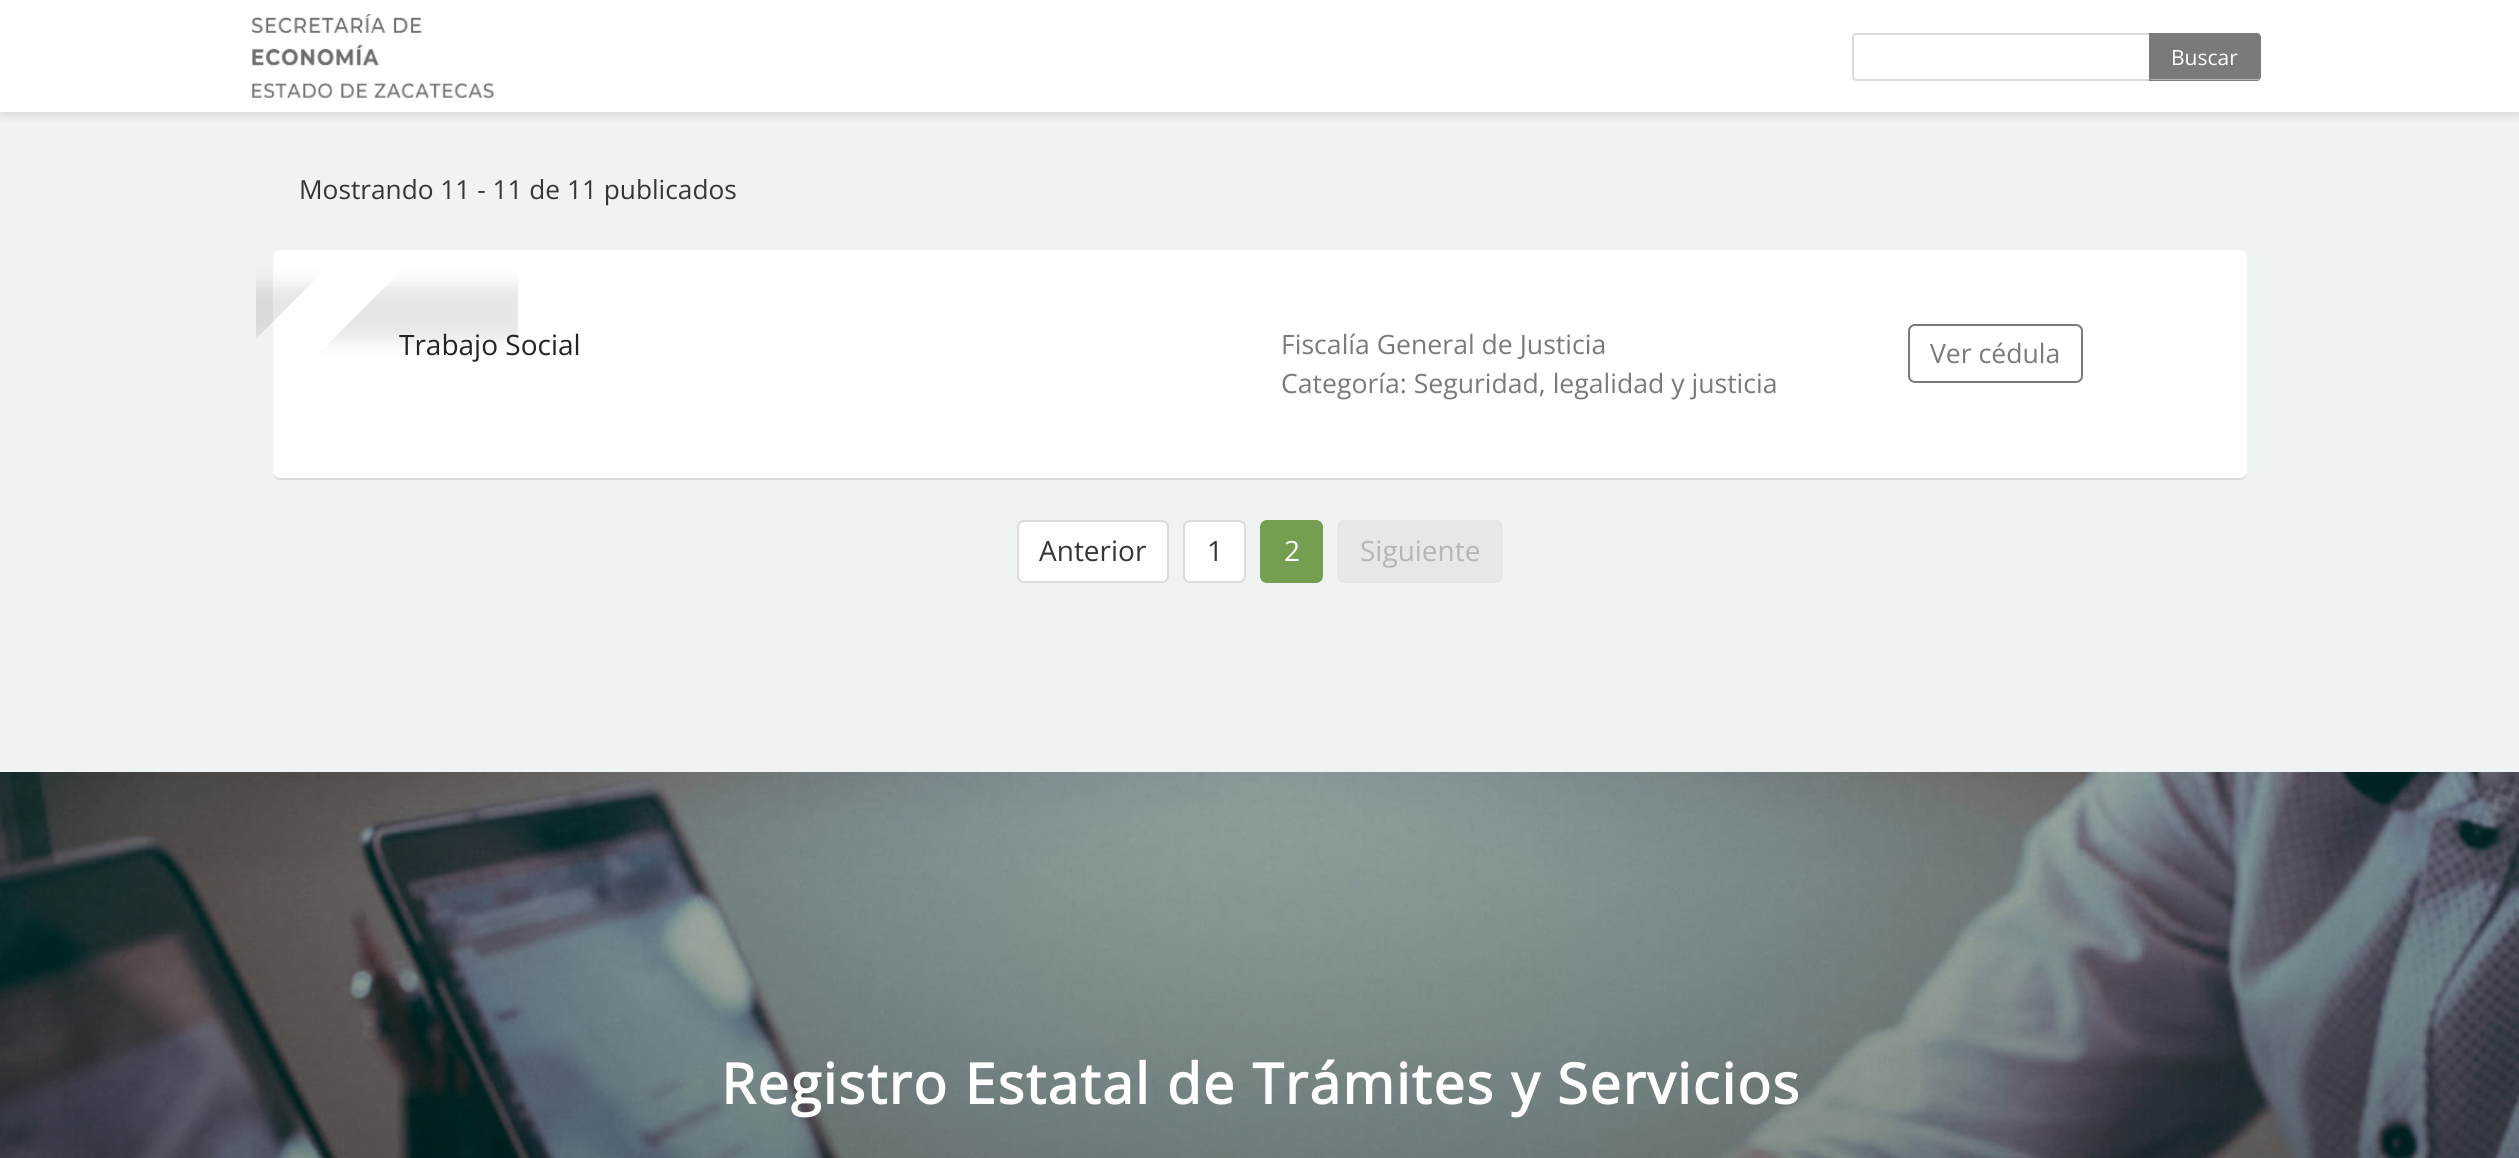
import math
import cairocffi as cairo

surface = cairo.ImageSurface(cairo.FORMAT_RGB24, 2519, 1158)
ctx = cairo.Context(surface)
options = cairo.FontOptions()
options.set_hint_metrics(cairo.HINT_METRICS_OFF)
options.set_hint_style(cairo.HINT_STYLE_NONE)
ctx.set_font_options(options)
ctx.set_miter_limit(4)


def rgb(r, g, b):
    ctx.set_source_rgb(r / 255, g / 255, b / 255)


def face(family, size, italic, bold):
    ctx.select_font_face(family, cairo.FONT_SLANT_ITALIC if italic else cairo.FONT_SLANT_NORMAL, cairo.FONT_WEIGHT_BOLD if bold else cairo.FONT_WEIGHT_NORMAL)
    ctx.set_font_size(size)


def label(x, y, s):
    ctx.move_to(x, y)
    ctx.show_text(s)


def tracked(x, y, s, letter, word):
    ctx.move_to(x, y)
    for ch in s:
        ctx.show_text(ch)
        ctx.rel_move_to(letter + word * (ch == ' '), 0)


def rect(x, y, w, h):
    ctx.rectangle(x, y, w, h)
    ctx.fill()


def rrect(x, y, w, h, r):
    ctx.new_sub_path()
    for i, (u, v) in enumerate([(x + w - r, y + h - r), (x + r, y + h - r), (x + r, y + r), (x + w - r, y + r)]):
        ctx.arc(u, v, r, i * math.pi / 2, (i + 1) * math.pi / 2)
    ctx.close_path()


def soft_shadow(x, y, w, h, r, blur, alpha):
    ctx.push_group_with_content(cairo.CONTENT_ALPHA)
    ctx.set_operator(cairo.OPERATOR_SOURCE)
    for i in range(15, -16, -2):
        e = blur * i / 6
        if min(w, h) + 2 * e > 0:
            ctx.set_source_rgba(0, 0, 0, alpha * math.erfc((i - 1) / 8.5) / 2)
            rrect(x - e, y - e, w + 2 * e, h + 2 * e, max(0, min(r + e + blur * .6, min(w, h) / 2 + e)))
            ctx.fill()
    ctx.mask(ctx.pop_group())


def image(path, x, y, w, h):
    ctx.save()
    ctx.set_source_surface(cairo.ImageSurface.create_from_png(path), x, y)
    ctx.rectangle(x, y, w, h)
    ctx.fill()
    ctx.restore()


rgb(239, 243, 244)
ctx.paint()
rgb(0, 0, 0)
soft_shadow(0, 4, 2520, 112, 0, 4.5, 0.1)
rgb(255, 255, 255)
rect(0, 0, 2519, 112)
image('image0.png', 252, 14, 242, 84)
ctx.new_path()
ctx.move_to(1856, 34)
ctx.line_to(2150, 34)
ctx.line_to(2150, 80)
ctx.line_to(1856, 80)
ctx.curve_to(1854.5, 80, 1853, 78.5, 1853, 77)
ctx.line_to(1853, 37)
ctx.curve_to(1853, 35.5, 1854.5, 34, 1856, 34)
ctx.close_path()
rgb(219, 219, 219)
ctx.stroke()
rgb(123, 121, 122)
ctx.new_path()
ctx.move_to(2149, 33)
ctx.line_to(2257, 33)
ctx.curve_to(2259, 33, 2261, 35, 2261, 37)
ctx.line_to(2261, 77)
ctx.curve_to(2261, 79, 2259, 81, 2257, 81)
ctx.line_to(2149, 81)
ctx.close_path()
ctx.fill()
rgb(181, 181, 181)
ctx.new_path()
ctx.move_to(2260, 79)
ctx.line_to(2258, 80)
ctx.line_to(2150, 80)
ctx.line_to(2151, 78)
ctx.line_to(2151, 79)
ctx.line_to(2258, 79)
ctx.line_to(2259, 78)
ctx.close_path()
ctx.fill()
face('Open Sans', 21, 0, 0)
rgb(255, 255, 255)
label(2171, 65, 'Buscar')
face('Open Sans', 26.25, 0, 0)
rgb(54, 54, 54)
label(299, 199, 'Mostrando 11 - 11 de 11 publicados')
rgb(215, 219, 220)
ctx.new_path()
ctx.move_to(273, 471)
ctx.curve_to(273, 475, 275, 480, 280, 480)
ctx.line_to(2240, 480)
ctx.curve_to(2245, 480, 2247, 475, 2247, 471)
ctx.curve_to(2247, 475, 2244, 478, 2240, 478)
ctx.line_to(280, 478)
ctx.curve_to(276, 478, 273, 475, 273, 471)
ctx.close_path()
ctx.fill()
rgb(255, 255, 255)
rrect(273, 250, 1974, 228, 7)
ctx.fill()
ctx.save()
ctx.rectangle(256, 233, 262, 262)
ctx.clip()
ctx.set_fill_rule(cairo.FILL_RULE_EVEN_ODD)
ctx.new_path()
ctx.move_to(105, 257)
ctx.line_to(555, 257)
ctx.line_to(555, 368)
ctx.line_to(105, 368)
ctx.close_path()
ctx.move_to(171.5, 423.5)
ctx.line_to(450, 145)
ctx.line_to(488.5, 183.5)
ctx.line_to(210, 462)
ctx.close_path()
ctx.clip()
rgb(0, 0, 0)
soft_shadow(133, 285, 394, 55, 0, 9, 0.1)
ctx.restore()
face('Open Sans', 28, 0, 0)
rgb(36, 36, 36)
label(399, 355, 'Trabajo Social')
face('Open Sans', 26.6, 0, 0)
rgb(122, 122, 122)
label(1281, 354, 'Fiscalía General de Justicia')
label(1281, 393, 'Categoría: Seguridad, legalidad y justicia')
rrect(1909, 325, 173, 57, 6)
rgb(123, 121, 122)
ctx.stroke()
rgb(122, 122, 122)
label(1930, 363, 'Ver cédula')
rgb(255, 255, 255)
rrect(1018, 521, 150, 61, 6)
ctx.fill_preserve()
rgb(219, 219, 219)
ctx.stroke()
face('Open Sans', 28, 0, 0)
rgb(54, 54, 54)
label(1039, 561, 'Anterior')
rgb(255, 255, 255)
rrect(1184, 521, 61, 61, 6)
ctx.fill_preserve()
rgb(219, 219, 219)
ctx.stroke()
rgb(54, 54, 54)
label(1207, 561, '1')
rgb(117, 158, 81)
rrect(1261, 521, 61, 61, 6)
ctx.fill_preserve()
ctx.stroke()
rgb(255, 255, 255)
label(1284, 561, '2')
rgb(229, 231, 232)
rrect(1338, 521, 164, 61, 6)
ctx.fill_preserve()
ctx.stroke()
rgb(181, 183, 183)
label(1360, 561, 'Siguiente')
image('image1.png', 0, 772, 2519, 386)
face('Open Sans', 56, 0, 1)
rgb(255, 255, 255)
tracked(721, 1104, 'Registro Estatal de Trámites y Servicios', 1.7, 0)
surface.write_to_png('render.png')
